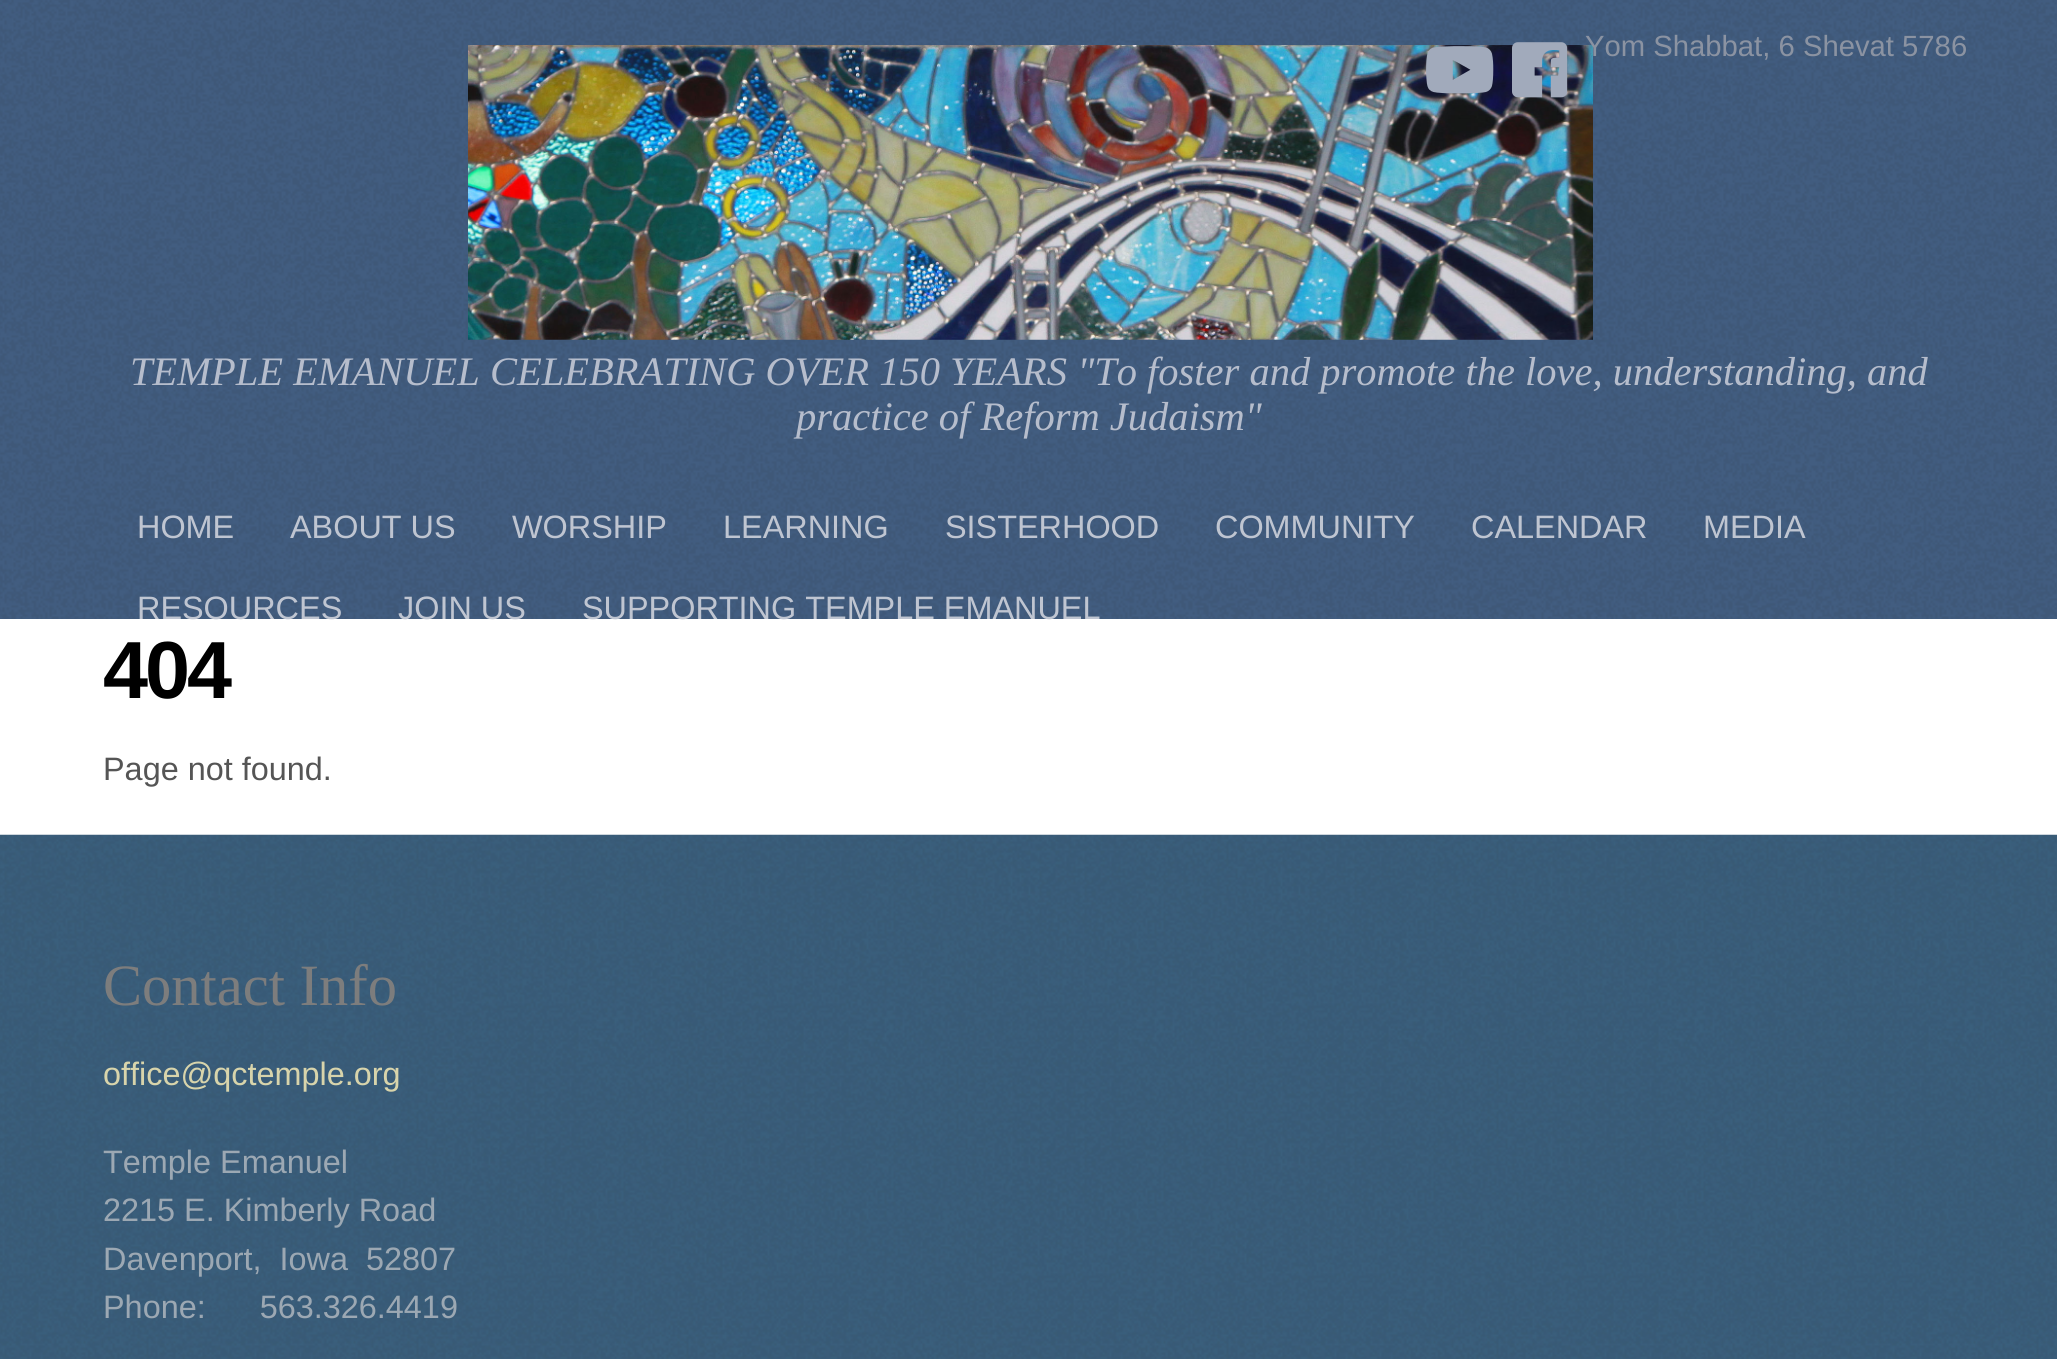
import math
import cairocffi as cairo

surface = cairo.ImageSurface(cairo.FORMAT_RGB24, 2057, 1359)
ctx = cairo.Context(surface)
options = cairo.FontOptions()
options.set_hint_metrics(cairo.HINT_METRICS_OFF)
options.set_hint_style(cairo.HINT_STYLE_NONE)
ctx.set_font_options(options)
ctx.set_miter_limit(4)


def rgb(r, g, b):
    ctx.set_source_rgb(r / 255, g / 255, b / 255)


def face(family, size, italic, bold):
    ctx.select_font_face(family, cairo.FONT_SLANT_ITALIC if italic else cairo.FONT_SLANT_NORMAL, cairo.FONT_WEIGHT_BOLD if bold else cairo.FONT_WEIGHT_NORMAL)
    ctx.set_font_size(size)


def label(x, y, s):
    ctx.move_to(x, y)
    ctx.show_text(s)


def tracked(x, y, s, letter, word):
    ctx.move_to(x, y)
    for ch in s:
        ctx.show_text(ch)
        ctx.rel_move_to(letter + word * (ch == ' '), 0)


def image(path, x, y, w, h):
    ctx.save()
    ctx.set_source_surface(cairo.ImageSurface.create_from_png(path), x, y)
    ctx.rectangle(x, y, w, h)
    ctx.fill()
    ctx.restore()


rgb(255, 255, 255)
ctx.paint()
image('image0.png', 0, 0, 2057, 619)
image('image1.png', 468, 45, 1125, 295)
image('image2.png', 1426, 46, 68, 48)
image('image3.png', 1512, 42, 56, 56)
face('Liberation Sans', 29.25, 0, 0)
rgb(139, 147, 162)
label(1585, 56, 'Yom Shabbat, 6 Shevat 5786')
face('Liberation Serif', 40.5, 1, 0)
rgb(182, 189, 204)
label(130, 385, 'TEMPLE EMANUEL CELEBRATING OVER 150 YEARS "To foster and promote the love, understanding, and')
label(796, 430, 'practice of Reform Judaism"')
face('Liberation Sans', 32.4, 0, 0)
rgb(191, 197, 209)
label(137, 538, 'HOME')
label(290, 538, 'ABOUT US')
label(512, 538, 'WORSHIP')
label(723, 538, 'LEARNING')
label(945, 538, 'SISTERHOOD')
label(1215, 538, 'COMMUNITY')
label(1471, 538, 'CALENDAR')
label(1703, 538, 'MEDIA')
label(137, 619, 'RESOURCES')
label(398, 619, 'JOIN US')
label(582, 619, 'SUPPORTING TEMPLE EMANUEL')
face('Liberation Sans', 81, 0, 1)
rgb(0, 0, 0)
tracked(103, 698, '404', -3, 0)
face('Liberation Sans', 32.4, 0, 0)
rgb(85, 85, 85)
label(103, 780, 'Page not found.')
image('image4.png', 0, 834, 2057, 525)
face('Liberation Serif', 58.5, 0, 0)
rgb(125, 125, 125)
label(103, 1005, 'Contact Info')
face('Liberation Sans', 32.4, 0, 0)
rgb(216, 212, 171)
label(103, 1085, 'office@qctemple.org')
rgb(156, 168, 179)
label(103, 1173, 'Temple Emanuel')
label(103, 1221, '2215 E. Kimberly Road')
label(103, 1270, 'Davenport,  Iowa  52807')
label(103, 1318, 'Phone:      563.326.4419')
surface.write_to_png('render.png')
